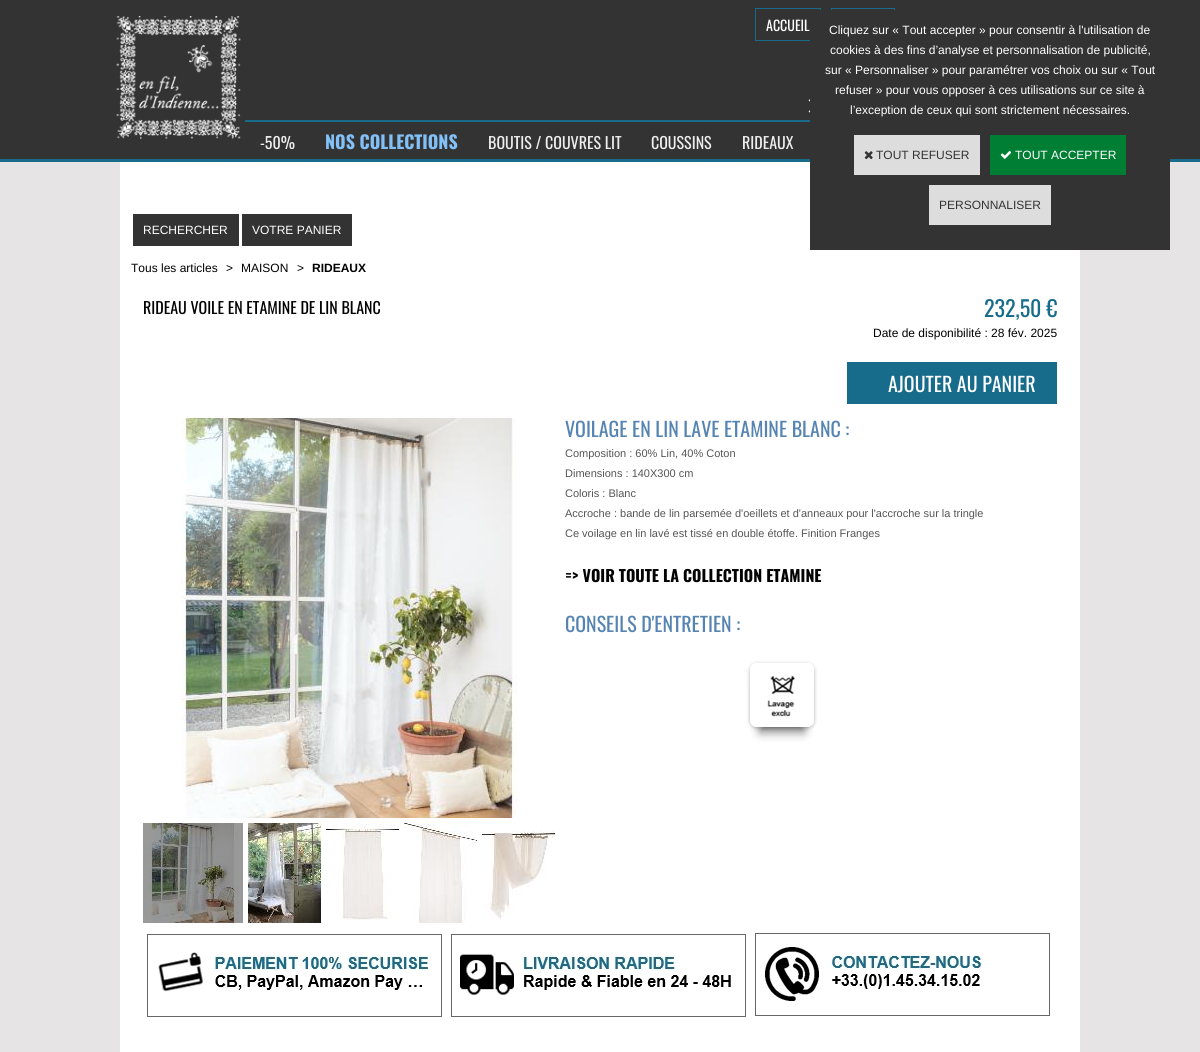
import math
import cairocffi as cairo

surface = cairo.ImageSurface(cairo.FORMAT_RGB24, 1200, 1052)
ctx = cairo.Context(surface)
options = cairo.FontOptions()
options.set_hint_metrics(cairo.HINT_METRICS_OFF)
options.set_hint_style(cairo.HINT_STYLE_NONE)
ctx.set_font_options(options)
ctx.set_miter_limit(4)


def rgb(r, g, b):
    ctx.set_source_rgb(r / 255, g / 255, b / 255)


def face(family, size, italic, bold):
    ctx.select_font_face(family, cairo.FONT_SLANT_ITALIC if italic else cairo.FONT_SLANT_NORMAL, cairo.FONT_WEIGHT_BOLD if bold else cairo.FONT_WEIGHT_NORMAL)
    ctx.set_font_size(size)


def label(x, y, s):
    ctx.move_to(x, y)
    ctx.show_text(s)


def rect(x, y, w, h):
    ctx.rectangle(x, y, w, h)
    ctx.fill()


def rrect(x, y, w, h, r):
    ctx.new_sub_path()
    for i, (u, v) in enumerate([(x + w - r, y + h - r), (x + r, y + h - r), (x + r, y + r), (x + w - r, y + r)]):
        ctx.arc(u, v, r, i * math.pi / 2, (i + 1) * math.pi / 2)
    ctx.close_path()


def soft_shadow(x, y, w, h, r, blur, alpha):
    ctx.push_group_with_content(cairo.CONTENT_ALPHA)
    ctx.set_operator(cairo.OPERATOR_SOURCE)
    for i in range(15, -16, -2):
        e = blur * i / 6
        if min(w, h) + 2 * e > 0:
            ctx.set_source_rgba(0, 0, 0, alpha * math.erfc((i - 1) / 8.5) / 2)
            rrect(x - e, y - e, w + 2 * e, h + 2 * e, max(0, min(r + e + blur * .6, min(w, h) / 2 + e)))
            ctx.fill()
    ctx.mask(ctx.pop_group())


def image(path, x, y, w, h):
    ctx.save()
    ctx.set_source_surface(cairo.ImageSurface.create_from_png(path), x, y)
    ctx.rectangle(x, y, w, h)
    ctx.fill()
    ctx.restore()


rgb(255, 255, 255)
ctx.paint()
image('image0.png', 0, 0, 1200, 162)
image('image1.png', 116, 16, 125, 123)
ctx.rectangle(755.5, 8.5, 65, 32)
rgb(23, 107, 139)
ctx.set_line_width(1)
ctx.stroke()
face('Oswald', 14, 0, 0)
rgb(255, 255, 255)
label(766, 31, 'ACCUEIL')
ctx.rectangle(831.5, 8.5, 63, 32)
rgb(23, 107, 139)
ctx.stroke()
image('image2.png', 808, 99, 2, 14)
rect(245, 120, 565, 2)
face('Oswald', 16, 0, 0)
rgb(238, 238, 238)
label(260, 149, '-50%')
face('Oswald', 18, 0, 1)
rgb(130, 193, 247)
label(325, 149, 'NOS COLLECTIONS')
face('Oswald', 16, 0, 0)
rgb(238, 238, 238)
label(488, 149, 'BOUTIS / COUVRES LIT')
label(651, 149, 'COUSSINS')
label(742, 149, 'RIDEAUX')
rgb(230, 228, 229)
rect(0, 162, 1200, 890)
rgb(255, 255, 255)
rect(120, 162, 960, 890)
rgb(51, 51, 51)
rect(810, 10, 360, 240)
face('Liberation Sans', 12, 0, 0)
rgb(255, 255, 255)
label(829, 34, 'Cliquez sur « Tout accepter » pour consentir à l\'utilisation de')
label(830, 54, 'cookies à des fins d’analyse et personnalisation de publicité,')
label(825, 74, 'sur « Personnaliser » pour paramétrer vos choix ou sur « Tout')
label(835, 94, 'refuser » pour vous opposer à ces utilisations sur ce site à')
label(850, 114, 'l’exception de ceux qui sont strictement nécessaires.')
rgb(221, 221, 221)
rect(854, 135, 126, 40)
image('image3.png', 864, 151, 9, 9)
rgb(51, 51, 51)
label(876, 159, 'TOUT REFUSER')
rgb(0, 126, 51)
rect(990, 135, 136, 40)
image('image4.png', 1000, 151, 12, 8)
rgb(255, 255, 255)
label(1015, 159, 'TOUT ACCEPTER')
rgb(221, 221, 221)
rect(929, 185, 122, 40)
rgb(51, 51, 51)
label(939, 209, 'PERSONNALISER')
rect(133, 214, 106, 32)
rgb(255, 255, 255)
label(143, 234, 'RECHERCHER')
rgb(51, 51, 51)
rect(242, 214, 110, 32)
rgb(255, 255, 255)
label(252, 234, 'VOTRE PANIER')
rgb(0, 0, 0)
label(131, 272, 'Tous les articles')
label(226, 272, '>')
label(241, 272, 'MAISON')
label(297, 272, '>')
face('Liberation Sans', 12, 0, 1)
label(312, 272, 'RIDEAUX')
face('Oswald', 16, 0, 0)
label(143, 314, 'RIDEAU VOILE EN ETAMINE DE LIN BLANC')
face('Oswald', 22, 0, 0)
rgb(23, 107, 139)
label(984, 317, '232,50 €')
face('Liberation Sans', 12, 0, 0)
rgb(0, 0, 0)
label(873, 337, 'Date de disponibilité : 28 fév. 2025')
rgb(23, 107, 139)
rect(847, 362, 210, 42)
face('Oswald', 20, 0, 0)
rgb(255, 255, 255)
label(888, 392, 'AJOUTER AU PANIER')
image('image5.png', 181, 418, 336, 400)
image('image6.png', 143, 823, 100, 100)
image('image7.png', 248, 823, 73, 100)
image('image8.png', 326, 823, 73, 97)
image('image9.png', 404, 823, 73, 100)
image('image10.png', 482, 831, 73, 88)
rgb(86, 132, 178)
label(565, 437, 'VOILAGE EN LIN LAVE ETAMINE BLANC :')
face('Liberation Sans', 11, 0, 0)
rgb(85, 85, 85)
label(565, 457, 'Composition : 60% Lin, 40% Coton')
label(565, 477, 'Dimensions : 140X300 cm')
label(565, 497, 'Coloris : Blanc')
label(565, 517, 'Accroche : bande de lin parsemée d\'oeillets et d\'anneaux pour l\'accroche sur la tringle')
label(565, 537, 'Ce voilage en lin lavé est tissé en double étoffe. Finition Franges')
face('Oswald', 16, 0, 1)
rgb(0, 0, 0)
label(565, 582, '=> VOIR TOUTE LA COLLECTION ETAMINE')
face('Oswald', 20, 0, 0)
rgb(86, 132, 178)
label(565, 632, 'CONSEILS D\'ENTRETIEN :')
ctx.save()
ctx.set_fill_rule(cairo.FILL_RULE_EVEN_ODD)
ctx.new_path()
ctx.move_to(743, 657)
ctx.line_to(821, 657)
ctx.line_to(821, 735)
ctx.line_to(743, 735)
ctx.close_path()
ctx.move_to(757, 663)
ctx.line_to(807, 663)
ctx.curve_to(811, 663, 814, 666, 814, 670)
ctx.line_to(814, 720)
ctx.curve_to(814, 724, 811, 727, 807, 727)
ctx.line_to(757, 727)
ctx.curve_to(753, 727, 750, 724, 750, 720)
ctx.line_to(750, 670)
ctx.curve_to(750, 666, 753, 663, 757, 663)
ctx.close_path()
ctx.clip()
rgb(0, 0, 0)
soft_shadow(750, 664, 64, 64, 7, 2, 0.3)
ctx.restore()
ctx.save()
ctx.set_fill_rule(cairo.FILL_RULE_EVEN_ODD)
ctx.new_path()
ctx.move_to(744, 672)
ctx.line_to(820, 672)
ctx.line_to(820, 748)
ctx.line_to(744, 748)
ctx.close_path()
ctx.move_to(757, 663)
ctx.line_to(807, 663)
ctx.curve_to(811, 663, 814, 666, 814, 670)
ctx.line_to(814, 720)
ctx.curve_to(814, 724, 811, 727, 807, 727)
ctx.line_to(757, 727)
ctx.curve_to(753, 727, 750, 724, 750, 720)
ctx.line_to(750, 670)
ctx.curve_to(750, 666, 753, 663, 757, 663)
ctx.close_path()
ctx.clip()
rgb(0, 0, 0)
soft_shadow(760, 688, 44, 44, 0, 5, 0.5)
ctx.restore()
rrect(753.5, 666.5, 57, 57, 3.5)
rgb(255, 255, 255)
ctx.set_line_width(7)
ctx.stroke()
image('image11.png', 767, 675, 28, 42)
image('image12.png', 147, 934, 295, 83)
image('image13.png', 451, 934, 295, 83)
image('image14.png', 755, 933, 295, 83)
surface.write_to_png('render.png')
